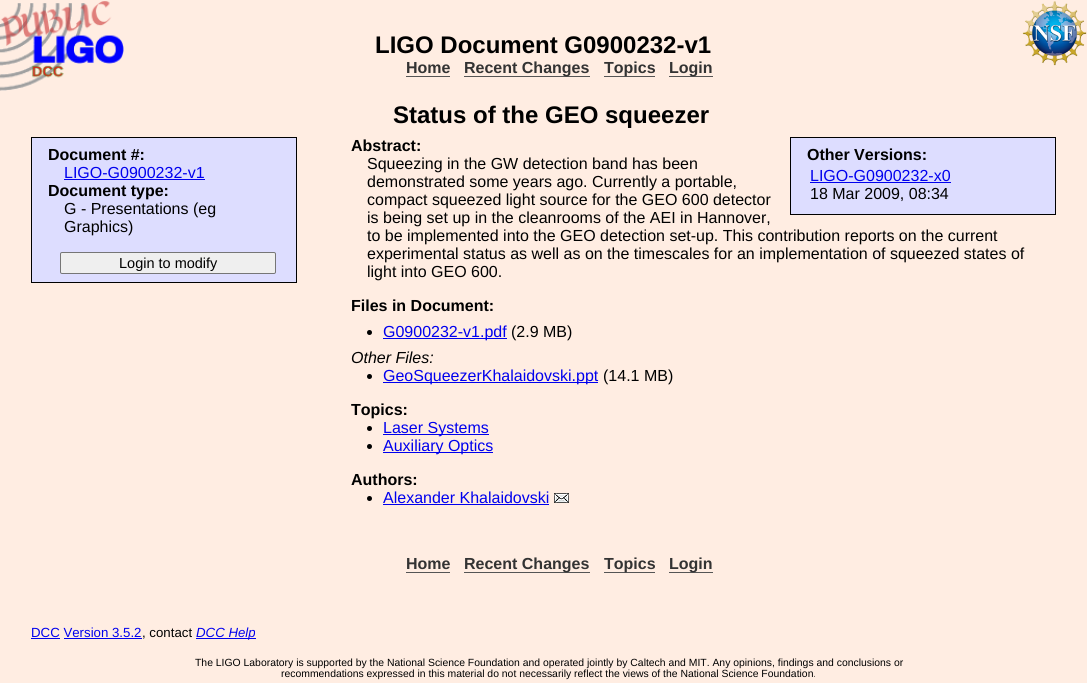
import math
import cairocffi as cairo

surface = cairo.ImageSurface(cairo.FORMAT_RGB24, 1087, 683)
ctx = cairo.Context(surface)
options = cairo.FontOptions()
options.set_hint_metrics(cairo.HINT_METRICS_OFF)
options.set_hint_style(cairo.HINT_STYLE_NONE)
ctx.set_font_options(options)
ctx.set_miter_limit(4)


def rgb(r, g, b):
    ctx.set_source_rgb(r / 255, g / 255, b / 255)


def face(family, size, italic, bold):
    ctx.select_font_face(family, cairo.FONT_SLANT_ITALIC if italic else cairo.FONT_SLANT_NORMAL, cairo.FONT_WEIGHT_BOLD if bold else cairo.FONT_WEIGHT_NORMAL)
    ctx.set_font_size(size)


def label(x, y, s):
    ctx.move_to(x, y)
    ctx.show_text(s)


def rect(x, y, w, h):
    ctx.rectangle(x, y, w, h)
    ctx.fill()


def rrect(x, y, w, h, r):
    ctx.new_sub_path()
    for i, (u, v) in enumerate([(x + w - r, y + h - r), (x + r, y + h - r), (x + r, y + r), (x + w - r, y + r)]):
        ctx.arc(u, v, r, i * math.pi / 2, (i + 1) * math.pi / 2)
    ctx.close_path()


def image(path, x, y, w, h):
    ctx.save()
    ctx.set_source_surface(cairo.ImageSurface.create_from_png(path), x, y)
    ctx.rectangle(x, y, w, h)
    ctx.fill()
    ctx.restore()


rgb(255, 237, 226)
ctx.paint()
image('image0.png', 0, 1, 1087, 90)
face('Liberation Sans', 24, 0, 1)
rgb(0, 0, 0)
label(375, 53, 'LIGO Document G0900232-v1')
face('Liberation Sans', 16, 0, 1)
rgb(51, 51, 51)
label(406, 73, 'Home')
rgb(85, 85, 85)
rect(406, 76, 44, 1)
rect(464, 76, 126, 1)
rgb(51, 51, 51)
label(464, 73, 'Recent Changes')
rgb(85, 85, 85)
rect(604, 76, 51, 1)
rgb(51, 51, 51)
label(604, 73, 'Topics')
rgb(85, 85, 85)
rect(669, 76, 44, 1)
rgb(51, 51, 51)
label(669, 73, 'Login')
face('Liberation Sans', 24, 0, 1)
rgb(0, 0, 0)
label(393, 123, 'Status of the GEO squeezer')
rgb(221, 221, 255)
ctx.rectangle(31.5, 137.5, 265, 145)
ctx.fill_preserve()
rgb(0, 0, 0)
ctx.set_line_width(1)
ctx.stroke()
face('Liberation Sans', 16, 0, 1)
label(48, 160, 'Document #:')
face('Liberation Sans', 16, 0, 0)
rgb(0, 0, 238)
label(64, 178, 'LIGO-G0900232-v1')
rect(64, 179, 141, 1)
face('Liberation Sans', 16, 0, 1)
rgb(0, 0, 0)
label(48, 196, 'Document type:')
face('Liberation Sans', 16, 0, 0)
label(64, 214, 'G - Presentations (eg')
label(64, 232, 'Graphics)')
rgb(239, 239, 239)
rrect(60.5, 252.5, 215, 21, 1.5)
ctx.fill_preserve()
rgb(118, 118, 118)
ctx.stroke()
face('Liberation Sans', 14.5, 0, 0)
rgb(0, 0, 0)
label(119, 268, 'Login to modify')
face('Liberation Sans', 16, 0, 1)
label(351, 151, 'Abstract:')
face('Liberation Sans', 16, 0, 0)
label(367, 169, 'Squeezing in the GW detection band has been')
label(367, 187, 'demonstrated some years ago. Currently a portable,')
label(367, 205, 'compact squeezed light source for the GEO 600 detector')
label(367, 223, 'is being set up in the cleanrooms of the AEI in Hannover,')
label(367, 241, 'to be implemented into the GEO detection set-up. This contribution reports on the current')
label(367, 259, 'experimental status as well as on the timescales for an implementation of squeezed states of')
label(367, 277, 'light into GEO 600.')
rgb(221, 221, 255)
ctx.rectangle(790.5, 137.5, 265, 77)
ctx.fill_preserve()
rgb(0, 0, 0)
ctx.stroke()
face('Liberation Sans', 16, 0, 1)
label(807, 160, 'Other Versions:')
face('Liberation Sans', 16, 0, 0)
rgb(0, 0, 238)
label(810, 181, 'LIGO-G0900232-x0')
rect(810, 182, 141, 1)
rgb(0, 0, 0)
label(810, 199, '18 Mar 2009, 08:34')
face('Liberation Sans', 16, 0, 1)
label(351, 311, 'Files in Document:')
ctx.new_path()
ctx.arc(369.5, 332.5, 2.5, 0, 2 * math.pi)
ctx.fill()
rgb(0, 0, 238)
rect(383, 338, 124, 1)
face('Liberation Sans', 16, 0, 0)
label(383, 337, 'G0900232-v1.pdf')
rgb(0, 0, 0)
label(511, 337, '(2.9 MB)')
face('Liberation Sans', 16, 1, 0)
label(351, 363, 'Other Files:')
ctx.new_path()
ctx.arc(369.5, 376.5, 2.5, 0, 2 * math.pi)
ctx.fill()
rgb(0, 0, 238)
rect(383, 382, 215, 1)
face('Liberation Sans', 16, 0, 0)
label(383, 381, 'GeoSqueezerKhalaidovski.ppt')
rgb(0, 0, 0)
label(603, 381, '(14.1 MB)')
face('Liberation Sans', 16, 0, 1)
label(351, 415, 'Topics:')
ctx.new_path()
ctx.arc(369.5, 428.5, 2.5, 0, 2 * math.pi)
ctx.fill()
rgb(0, 0, 238)
rect(383, 434, 106, 1)
face('Liberation Sans', 16, 0, 0)
label(383, 433, 'Laser Systems')
rgb(0, 0, 0)
ctx.new_path()
ctx.arc(369.5, 446.5, 2.5, 0, 2 * math.pi)
ctx.fill()
rgb(0, 0, 238)
rect(383, 452, 110, 1)
label(383, 451, 'Auxiliary Optics')
face('Liberation Sans', 16, 0, 1)
rgb(0, 0, 0)
label(351, 485, 'Authors:')
ctx.new_path()
ctx.arc(369.5, 498.5, 2.5, 0, 2 * math.pi)
ctx.fill()
face('Liberation Sans', 16, 0, 0)
rgb(0, 0, 238)
label(383, 503, 'Alexander Khalaidovski')
rect(383, 504, 166, 1)
image('image1.png', 554, 493, 15, 10)
face('Liberation Sans', 16, 0, 1)
rgb(51, 51, 51)
label(406, 569, 'Home')
rgb(85, 85, 85)
rect(406, 572, 44, 1)
rect(464, 572, 126, 1)
rgb(51, 51, 51)
label(464, 569, 'Recent Changes')
rgb(85, 85, 85)
rect(604, 572, 51, 1)
rgb(51, 51, 51)
label(604, 569, 'Topics')
rgb(85, 85, 85)
rect(669, 572, 44, 1)
rgb(51, 51, 51)
label(669, 569, 'Login')
face('Liberation Sans', 13.25, 0, 0)
rgb(0, 0, 238)
label(31, 637, 'DCC Version 3.5.2')
rect(31, 638, 29, 1)
rgb(0, 0, 0)
label(142, 637, ', contact')
rgb(0, 0, 238)
rect(64, 638, 78, 1)
rect(196, 638, 60, 1)
face('Liberation Sans', 13.25, 1, 0)
label(196, 637, 'DCC Help')
face('Liberation Sans', 10.4, 0, 0)
rgb(0, 0, 0)
label(195, 666, 'The LIGO Laboratory is supported by the National Science Foundation and operated jointly by Caltech and MIT. Any opinions, findings and conclusions or')
label(281, 677, 'recommendations expressed in this material do not necessarily reflect the views of the National Science Foundation.')
surface.write_to_png('render.png')
